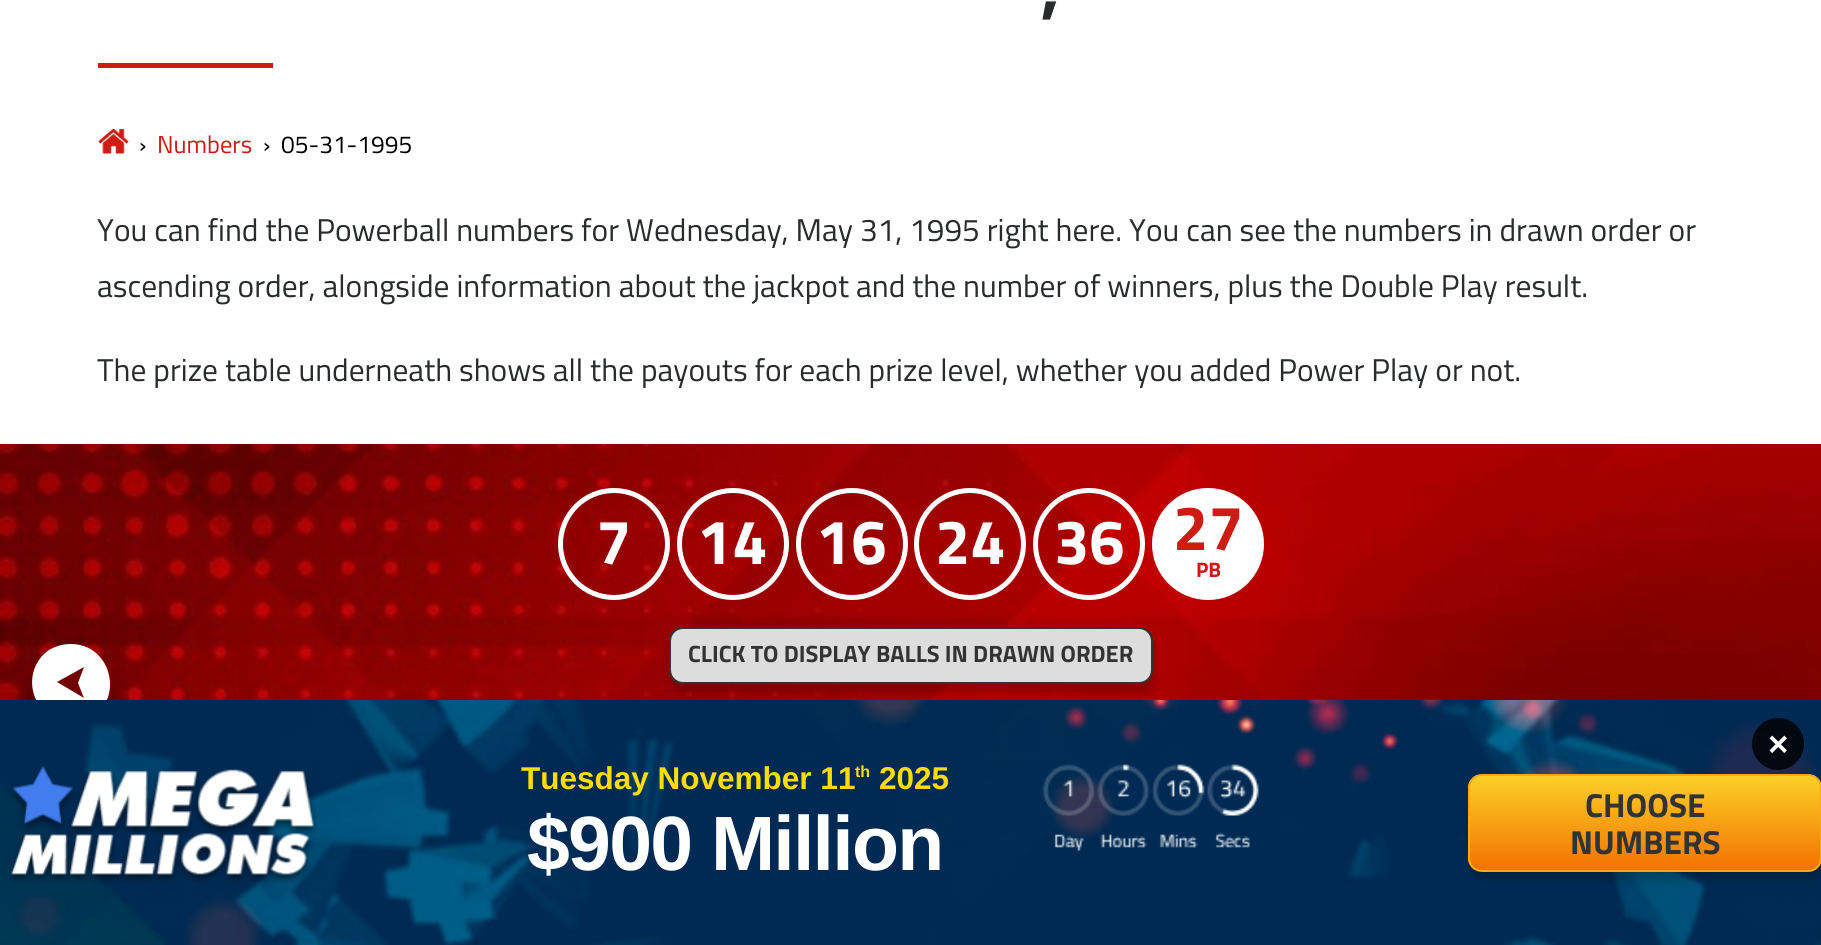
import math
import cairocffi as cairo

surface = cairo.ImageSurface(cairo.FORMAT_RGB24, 1821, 945)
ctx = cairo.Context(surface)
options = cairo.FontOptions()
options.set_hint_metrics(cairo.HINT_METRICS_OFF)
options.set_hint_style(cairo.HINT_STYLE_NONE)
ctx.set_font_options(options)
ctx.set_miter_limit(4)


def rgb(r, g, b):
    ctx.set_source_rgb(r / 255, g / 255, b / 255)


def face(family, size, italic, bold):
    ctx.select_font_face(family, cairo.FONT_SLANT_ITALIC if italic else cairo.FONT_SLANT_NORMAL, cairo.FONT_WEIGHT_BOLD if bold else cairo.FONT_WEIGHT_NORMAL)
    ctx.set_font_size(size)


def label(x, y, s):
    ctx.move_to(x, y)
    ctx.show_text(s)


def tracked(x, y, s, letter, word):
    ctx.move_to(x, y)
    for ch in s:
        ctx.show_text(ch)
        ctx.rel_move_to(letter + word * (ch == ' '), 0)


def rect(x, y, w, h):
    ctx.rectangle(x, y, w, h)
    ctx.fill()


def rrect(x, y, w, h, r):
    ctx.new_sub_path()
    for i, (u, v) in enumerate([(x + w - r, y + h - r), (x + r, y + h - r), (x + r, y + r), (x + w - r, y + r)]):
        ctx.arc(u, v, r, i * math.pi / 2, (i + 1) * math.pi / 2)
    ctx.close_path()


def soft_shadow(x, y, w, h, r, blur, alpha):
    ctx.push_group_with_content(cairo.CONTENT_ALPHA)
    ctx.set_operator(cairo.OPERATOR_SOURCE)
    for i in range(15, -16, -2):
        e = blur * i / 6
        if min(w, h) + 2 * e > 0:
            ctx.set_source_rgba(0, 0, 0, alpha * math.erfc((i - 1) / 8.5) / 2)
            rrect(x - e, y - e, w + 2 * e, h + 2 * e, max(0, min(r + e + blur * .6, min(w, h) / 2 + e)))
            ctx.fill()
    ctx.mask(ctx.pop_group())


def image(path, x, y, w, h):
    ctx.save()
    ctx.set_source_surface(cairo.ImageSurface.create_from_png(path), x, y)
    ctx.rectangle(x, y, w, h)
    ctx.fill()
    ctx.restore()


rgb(255, 255, 255)
ctx.paint()
face('Titillium Web', 70, 0, 1)
rgb(41, 43, 44)
label(1041, 11, ',')
rgb(206, 27, 20)
rect(98, 63, 175, 5)
image('image0.png', 98, 129, 31, 25)
face('Titillium Web', 24.5, 0, 0)
rgb(0, 0, 0)
label(139, 153, '›')
rgb(206, 27, 20)
label(157, 153, 'Numbers')
rgb(0, 0, 0)
label(263, 153, '›')
label(281, 153, '05-31-1995')
face('Titillium Web', 31.5, 0, 0)
rgb(41, 43, 44)
label(97, 241, 'You can find the Powerball numbers for Wednesday, May 31, 1995 right here. You can see the numbers in drawn order or')
label(97, 297, 'ascending order, alongside information about the jackpot and the number of winners, plus the Double Play result.')
label(97, 381, 'The prize table underneath shows all the payouts for each prize level, whether you added Power Play or not.')
image('image1.png', 0, 444, 1821, 256)
ctx.arc(614, 544, 53.5, 0, 2 * math.pi)
rgb(255, 255, 255)
ctx.set_line_width(5)
ctx.stroke()
face('Titillium Web', 63, 0, 1)
label(596, 564, '7')
ctx.new_path()
ctx.arc(733, 544, 53.5, 0, 2 * math.pi)
ctx.stroke()
label(697, 564, '14')
ctx.new_path()
ctx.arc(852, 544, 53.5, 0, 2 * math.pi)
ctx.stroke()
label(816, 564, '16')
ctx.new_path()
ctx.arc(970, 544, 53.5, 0, 2 * math.pi)
ctx.stroke()
label(935, 564, '24')
ctx.new_path()
ctx.arc(1089, 544, 53.5, 0, 2 * math.pi)
ctx.stroke()
label(1054, 564, '36')
ctx.new_path()
ctx.arc(1208, 544, 53.5, 0, 2 * math.pi)
ctx.fill_preserve()
ctx.stroke()
rgb(206, 27, 20)
label(1173, 550, '27')
face('Titillium Web', 21, 0, 1)
label(1196, 577, 'PB')
rgb(0, 0, 0)
soft_shadow(670, 635, 485, 58, 14, 4.5, 0.2)
rgb(221, 221, 221)
rrect(670, 628, 482, 55, 13)
ctx.fill_preserve()
rgb(51, 51, 51)
ctx.set_line_width(2)
ctx.stroke()
face('Titillium Web', 23.6, 0, 1)
label(688, 662, 'CLICK TO DISPLAY BALLS IN DRAWN ORDER')
ctx.save()
ctx.set_fill_rule(cairo.FILL_RULE_EVEN_ODD)
ctx.new_path()
ctx.move_to(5, 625)
ctx.line_to(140, 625)
ctx.line_to(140, 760)
ctx.line_to(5, 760)
ctx.close_path()
ctx.move_to(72.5, 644)
ctx.curve_to(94.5, 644, 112, 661.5, 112, 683.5)
ctx.curve_to(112, 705.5, 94.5, 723, 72.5, 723)
ctx.curve_to(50.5, 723, 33, 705.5, 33, 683.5)
ctx.curve_to(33, 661.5, 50.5, 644, 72.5, 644)
ctx.close_path()
ctx.clip()
rgb(0, 0, 0)
soft_shadow(33, 653, 79, 79, 39.5, 9, 0.2)
ctx.restore()
rgb(255, 255, 255)
ctx.set_fill_rule(cairo.FILL_RULE_EVEN_ODD)
ctx.new_path()
ctx.move_to(71, 644)
ctx.curve_to(63, 644, 56, 646, 49, 650)
ctx.curve_to(23, 668, 28, 708, 57, 719)
ctx.curve_to(63, 722, 67, 722, 73, 722)
ctx.curve_to(78, 722, 84, 720, 89, 718)
ctx.curve_to(125, 701, 112, 644, 71, 644)
ctx.close_path()
ctx.move_to(84, 667)
ctx.line_to(57, 682)
ctx.line_to(84, 698)
ctx.line_to(78, 683)
ctx.close_path()
ctx.fill()
image('image2.png', 0, 700, 1821, 245)
rgb(0, 0, 0)
soft_shadow(1470, 782, 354, 98, 14, 4.5, 0.2)
ctx.set_source_rgba(0, 0, 0, 0.8)
ctx.arc(1778, 744, 26, 0, 2 * math.pi)
ctx.fill()
face('Liberation Sans', 35, 0, 1)
rgb(255, 255, 255)
label(1768, 756, '×')
image('image3.png', 9, 766, 309, 117)
face('Liberation Sans', 31.5, 0, 1)
rgb(255, 221, 0)
label(521, 789, 'Tuesday November 11')
face('Liberation Sans', 16, 0, 1)
label(855, 777, 'th')
face('Liberation Sans', 31.5, 0, 1)
label(879, 789, '2025')
face('Liberation Sans', 77, 0, 1)
rgb(255, 255, 255)
tracked(527, 870, '$900 Million', -1.75, 0)
image('image4.png', 1042, 764, 217, 87)
ctx.save()
ctx.set_fill_rule(cairo.FILL_RULE_WINDING)
rrect(1468, 774, 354, 98, 14)
ctx.clip()
gradient = cairo.LinearGradient(1645, 775, 1645, 870)
gradient.add_color_stop_rgba(0, 0.988, 0.816, 0.153, 1)
gradient.add_color_stop_rgba(1, 0.953, 0.447, 0, 1)
ctx.set_source(gradient)
rect(1468, 775, 353, 95)
ctx.restore()
rrect(1469, 775, 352, 96, 13)
rgb(249, 171, 12)
ctx.stroke()
face('Titillium Web', 33.25, 0, 1)
rgb(51, 51, 51)
label(1585, 817, 'CHOOSE')
label(1570, 854, 'NUMBERS')
surface.write_to_png('render.png')
